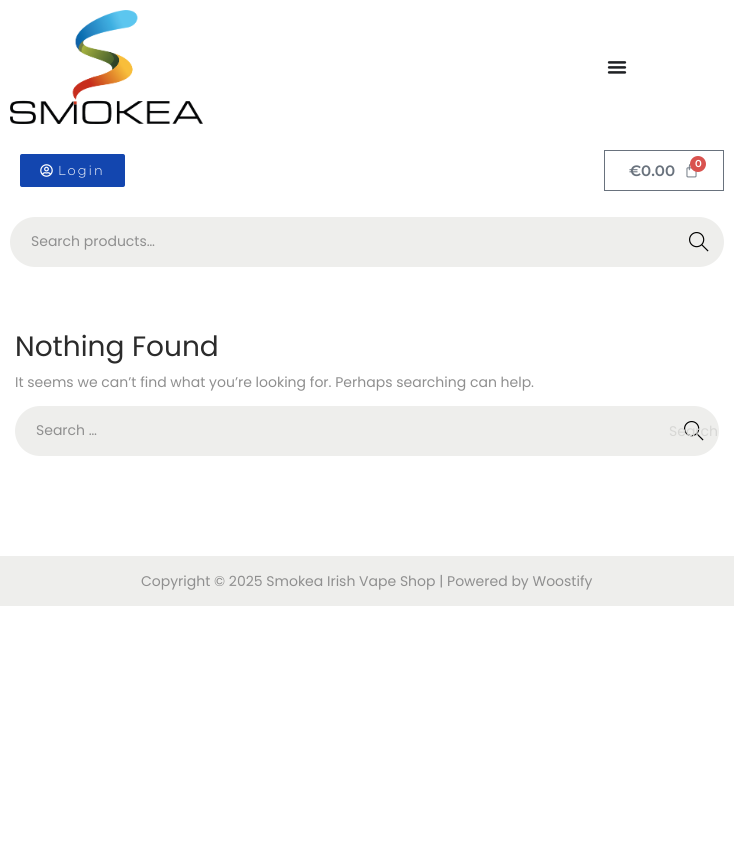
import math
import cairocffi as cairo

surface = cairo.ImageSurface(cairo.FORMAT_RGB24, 734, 863)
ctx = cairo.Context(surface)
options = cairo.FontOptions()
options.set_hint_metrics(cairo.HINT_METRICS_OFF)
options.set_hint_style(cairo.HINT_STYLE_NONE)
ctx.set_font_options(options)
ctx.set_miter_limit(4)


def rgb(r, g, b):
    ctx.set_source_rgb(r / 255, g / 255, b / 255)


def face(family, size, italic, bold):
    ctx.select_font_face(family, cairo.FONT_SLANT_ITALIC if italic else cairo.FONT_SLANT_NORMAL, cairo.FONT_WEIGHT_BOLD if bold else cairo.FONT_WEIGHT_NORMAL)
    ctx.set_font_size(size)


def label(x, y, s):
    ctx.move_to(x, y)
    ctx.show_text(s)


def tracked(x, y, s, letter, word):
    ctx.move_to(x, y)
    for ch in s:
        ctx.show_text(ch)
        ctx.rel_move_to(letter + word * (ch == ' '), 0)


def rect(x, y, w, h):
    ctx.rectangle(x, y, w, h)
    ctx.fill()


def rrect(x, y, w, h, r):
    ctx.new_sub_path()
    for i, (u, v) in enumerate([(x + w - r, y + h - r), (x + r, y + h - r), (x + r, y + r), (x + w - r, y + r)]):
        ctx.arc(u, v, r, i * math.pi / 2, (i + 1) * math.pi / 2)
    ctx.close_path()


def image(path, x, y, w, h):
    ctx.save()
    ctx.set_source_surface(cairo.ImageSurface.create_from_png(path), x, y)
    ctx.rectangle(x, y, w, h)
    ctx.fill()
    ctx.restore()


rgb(255, 255, 255)
ctx.paint()
image('image0.png', 10, 10, 193, 114)
image('image1.png', 607, 61, 20, 13)
rgb(19, 70, 175)
rrect(20, 154, 105, 33, 2)
ctx.fill()
image('image2.png', 40, 164, 13, 13)
face('Montserrat Light', 13, 0, 0)
rgb(255, 255, 255)
tracked(58, 175, 'Login', 2, 0)
ctx.rectangle(604.5, 150.5, 119, 40)
rgb(105, 114, 125)
ctx.set_line_width(1)
ctx.stroke()
image('image3.png', 686, 163, 11, 15)
rgb(217, 83, 79)
ctx.arc(698, 164, 8, 0, 2 * math.pi)
ctx.fill()
face('Montserrat SemiBold', 10, 0, 0)
rgb(255, 255, 255)
label(695, 167, '0')
face('Montserrat SemiBold', 15, 0, 0)
rgb(105, 114, 125)
label(629, 176, '€0.00')
rgb(238, 238, 236)
rrect(10, 217, 714, 50, 25)
ctx.fill()
face('Poppins', 14, 0, 0)
rgb(143, 143, 143)
label(31, 246, 'Search products…')
image('image4.png', 689, 232, 20, 20)
face('Poppins', 28, 0, 0)
rgb(43, 43, 43)
label(15, 356, 'Nothing Found')
face('Poppins', 14, 0, 0)
rgb(143, 143, 143)
label(15, 387, 'It seems we can’t find what you’re looking for. Perhaps searching can help.')
rgb(238, 238, 236)
rrect(15, 406, 704, 50, 25)
ctx.fill()
rgb(143, 143, 143)
label(36, 435, 'Search …')
image('image4.png', 684, 421, 20, 20)
rgb(215, 215, 213)
label(669, 436, 'Search')
rgb(238, 238, 236)
rect(0, 556, 734, 50)
rgb(143, 143, 143)
label(141, 586, 'Copyright © 2025 Smokea Irish Vape Shop | Powered by Woostify')
surface.write_to_png('render.png')
